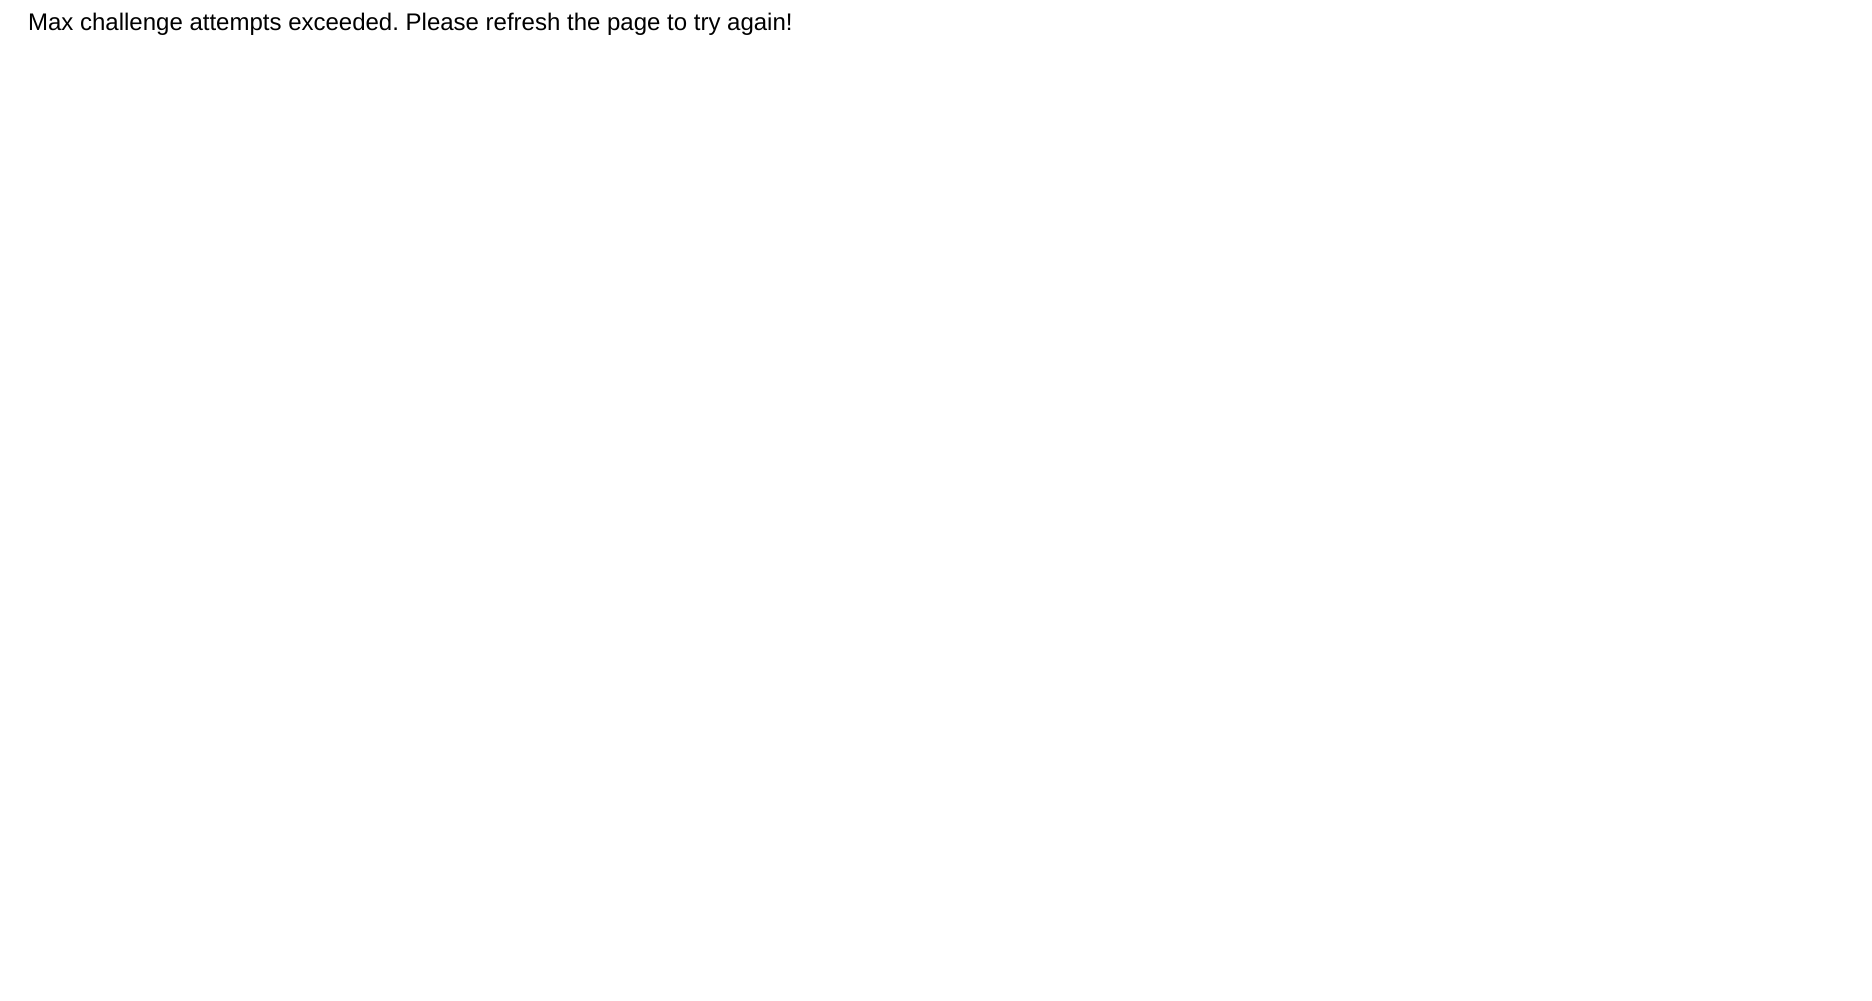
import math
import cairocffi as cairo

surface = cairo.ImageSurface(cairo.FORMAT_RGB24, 1872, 1001)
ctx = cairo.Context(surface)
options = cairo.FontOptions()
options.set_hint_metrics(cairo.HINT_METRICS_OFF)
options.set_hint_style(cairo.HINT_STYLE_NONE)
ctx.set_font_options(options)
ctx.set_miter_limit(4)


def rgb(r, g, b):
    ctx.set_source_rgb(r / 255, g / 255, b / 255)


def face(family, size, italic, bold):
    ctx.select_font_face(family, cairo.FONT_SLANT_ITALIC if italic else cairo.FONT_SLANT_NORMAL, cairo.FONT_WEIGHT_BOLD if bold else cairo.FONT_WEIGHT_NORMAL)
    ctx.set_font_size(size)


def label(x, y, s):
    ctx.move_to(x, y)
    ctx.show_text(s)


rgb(255, 255, 255)
ctx.paint()
face('Liberation Sans', 24, 0, 0)
rgb(0, 0, 0)
label(28, 30, 'Max challenge attempts exceeded. Please refresh the page to try again!')
surface.write_to_png('render.png')
